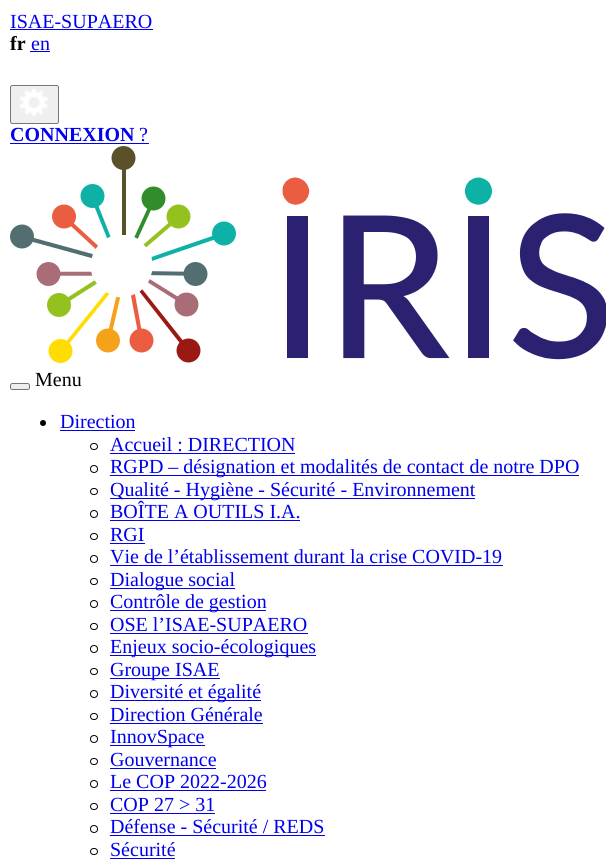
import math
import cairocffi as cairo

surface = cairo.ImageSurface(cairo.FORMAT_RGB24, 616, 867)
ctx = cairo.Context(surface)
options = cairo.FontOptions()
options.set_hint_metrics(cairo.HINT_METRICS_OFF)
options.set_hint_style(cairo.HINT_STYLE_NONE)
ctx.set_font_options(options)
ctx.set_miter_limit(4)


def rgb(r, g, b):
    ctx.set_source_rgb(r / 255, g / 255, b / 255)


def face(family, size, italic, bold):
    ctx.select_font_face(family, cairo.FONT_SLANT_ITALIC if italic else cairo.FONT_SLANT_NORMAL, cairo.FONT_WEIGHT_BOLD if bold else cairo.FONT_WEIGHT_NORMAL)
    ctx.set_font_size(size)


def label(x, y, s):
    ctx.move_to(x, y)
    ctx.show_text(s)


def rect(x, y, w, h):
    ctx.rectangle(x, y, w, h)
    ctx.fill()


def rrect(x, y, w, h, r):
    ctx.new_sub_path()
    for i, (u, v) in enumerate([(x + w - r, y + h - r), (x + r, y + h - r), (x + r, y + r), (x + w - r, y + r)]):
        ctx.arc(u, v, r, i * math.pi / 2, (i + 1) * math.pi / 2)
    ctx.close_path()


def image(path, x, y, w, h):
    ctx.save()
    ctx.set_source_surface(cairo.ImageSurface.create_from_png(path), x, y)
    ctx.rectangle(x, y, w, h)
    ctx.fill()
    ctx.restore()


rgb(255, 255, 255)
ctx.paint()
face('Liberation Serif', 20, 0, 0)
rgb(0, 0, 238)
label(10, 28, 'ISAE-SUPAERO')
rect(10, 29, 143, 1)
face('Liberation Serif', 20, 0, 1)
rgb(0, 0, 0)
label(10, 50, 'fr')
face('Liberation Serif', 20, 0, 0)
rgb(0, 0, 238)
label(31, 50, 'en')
rect(30, 51, 20, 1)
rgb(239, 239, 239)
rrect(10.5, 85.5, 48, 38, 2)
ctx.fill_preserve()
rgb(118, 118, 118)
ctx.set_line_width(1)
ctx.stroke()
image('image0.png', 20, 89, 29, 27)
face('Liberation Serif', 20, 0, 1)
rgb(0, 0, 238)
label(10, 141, 'CONNEXION')
rect(10, 143, 139, 1)
face('Liberation Serif', 20, 0, 0)
label(139, 141, '?')
image('image1.png', 10, 146, 596, 217)
rgb(239, 239, 239)
rrect(10.5, 383.5, 19, 6, 2)
ctx.fill_preserve()
rgb(118, 118, 118)
ctx.stroke()
rgb(0, 0, 0)
label(35, 386, 'Menu')
ctx.new_path()
ctx.arc(43, 423, 3, 0, 2 * math.pi)
ctx.fill()
rgb(0, 0, 238)
label(60, 428, 'Direction')
rect(60, 430, 75, 1)
rrect(90.5, 443.5, 7, 6, 3)
rgb(0, 0, 0)
ctx.stroke()
rgb(0, 0, 238)
label(110, 451, 'Accueil : DIRECTION')
rect(110, 453, 185, 1)
ctx.new_path()
ctx.arc(94, 469, 3.5, 0, 2 * math.pi)
rgb(0, 0, 0)
ctx.stroke()
rgb(0, 0, 238)
rect(110, 475, 469, 1)
label(110, 473, 'RGPD – désignation et modalités de contact de notre DPO')
rrect(90.5, 488.5, 7, 6, 3)
rgb(0, 0, 0)
ctx.stroke()
rgb(0, 0, 238)
rect(110, 498, 365, 1)
label(110, 496, 'Qualité - Hygiène - Sécurité - Environnement')
ctx.new_path()
ctx.arc(94, 514, 3.5, 0, 2 * math.pi)
rgb(0, 0, 0)
ctx.stroke()
rgb(0, 0, 238)
label(110, 518, 'BOÎTE A OUTILS I.A.')
rect(110, 520, 190, 1)
rrect(90.5, 533.5, 7, 6, 3)
rgb(0, 0, 0)
ctx.stroke()
rgb(0, 0, 238)
label(110, 541, 'RGI')
rect(110, 543, 35, 1)
ctx.new_path()
ctx.arc(94, 559, 3.5, 0, 2 * math.pi)
rgb(0, 0, 0)
ctx.stroke()
rgb(0, 0, 238)
label(110, 563, 'Vie de l’établissement durant la crise COVID-19')
rect(110, 565, 393, 1)
rrect(90.5, 578.5, 7, 6, 3)
rgb(0, 0, 0)
ctx.stroke()
rgb(0, 0, 238)
rect(110, 588, 125, 1)
label(110, 586, 'Dialogue social')
ctx.new_path()
ctx.arc(94, 604, 3.5, 0, 2 * math.pi)
rgb(0, 0, 0)
ctx.stroke()
rgb(0, 0, 238)
rect(110, 610, 156, 1)
label(110, 608, 'Contrôle de gestion')
rrect(90.5, 623.5, 7, 6, 3)
rgb(0, 0, 0)
ctx.stroke()
rgb(0, 0, 238)
label(110, 631, 'OSE l’ISAE-SUPAERO')
rect(110, 633, 198, 1)
ctx.new_path()
ctx.arc(94, 649, 3.5, 0, 2 * math.pi)
rgb(0, 0, 0)
ctx.stroke()
rgb(0, 0, 238)
rect(110, 655, 206, 1)
label(110, 653, 'Enjeux socio-écologiques')
rrect(90.5, 668.5, 7, 6, 3)
rgb(0, 0, 0)
ctx.stroke()
rgb(0, 0, 238)
rect(110, 678, 110, 1)
label(110, 676, 'Groupe ISAE')
ctx.new_path()
ctx.arc(94, 694, 3.5, 0, 2 * math.pi)
rgb(0, 0, 0)
ctx.stroke()
rgb(0, 0, 238)
rect(110, 700, 151, 1)
label(110, 698, 'Diversité et égalité')
rrect(90.5, 713.5, 7, 6, 3)
rgb(0, 0, 0)
ctx.stroke()
rgb(0, 0, 238)
label(110, 721, 'Direction Générale')
rect(110, 723, 153, 1)
ctx.new_path()
ctx.arc(94, 739, 3.5, 0, 2 * math.pi)
rgb(0, 0, 0)
ctx.stroke()
rgb(0, 0, 238)
rect(110, 745, 95, 1)
label(110, 743, 'InnovSpace')
rrect(90.5, 758.5, 7, 6, 3)
rgb(0, 0, 0)
ctx.stroke()
rgb(0, 0, 238)
label(110, 766, 'Gouvernance')
rect(110, 768, 106, 1)
ctx.new_path()
ctx.arc(94, 784, 3.5, 0, 2 * math.pi)
rgb(0, 0, 0)
ctx.stroke()
rgb(0, 0, 238)
label(110, 788, 'Le COP 2022-2026')
rect(110, 790, 156, 1)
rrect(90.5, 803.5, 7, 6, 3)
rgb(0, 0, 0)
ctx.stroke()
rgb(0, 0, 238)
label(110, 811, 'COP 27 > 31')
rect(110, 813, 105, 1)
ctx.new_path()
ctx.arc(94, 829, 3.5, 0, 2 * math.pi)
rgb(0, 0, 0)
ctx.stroke()
rgb(0, 0, 238)
label(110, 833, 'Défense - Sécurité / REDS')
rect(110, 835, 215, 1)
rrect(90.5, 848.5, 7, 6, 3)
rgb(0, 0, 0)
ctx.stroke()
rgb(0, 0, 238)
label(110, 856, 'Sécurité')
rect(110, 858, 65, 1)
surface.write_to_png('render.png')
